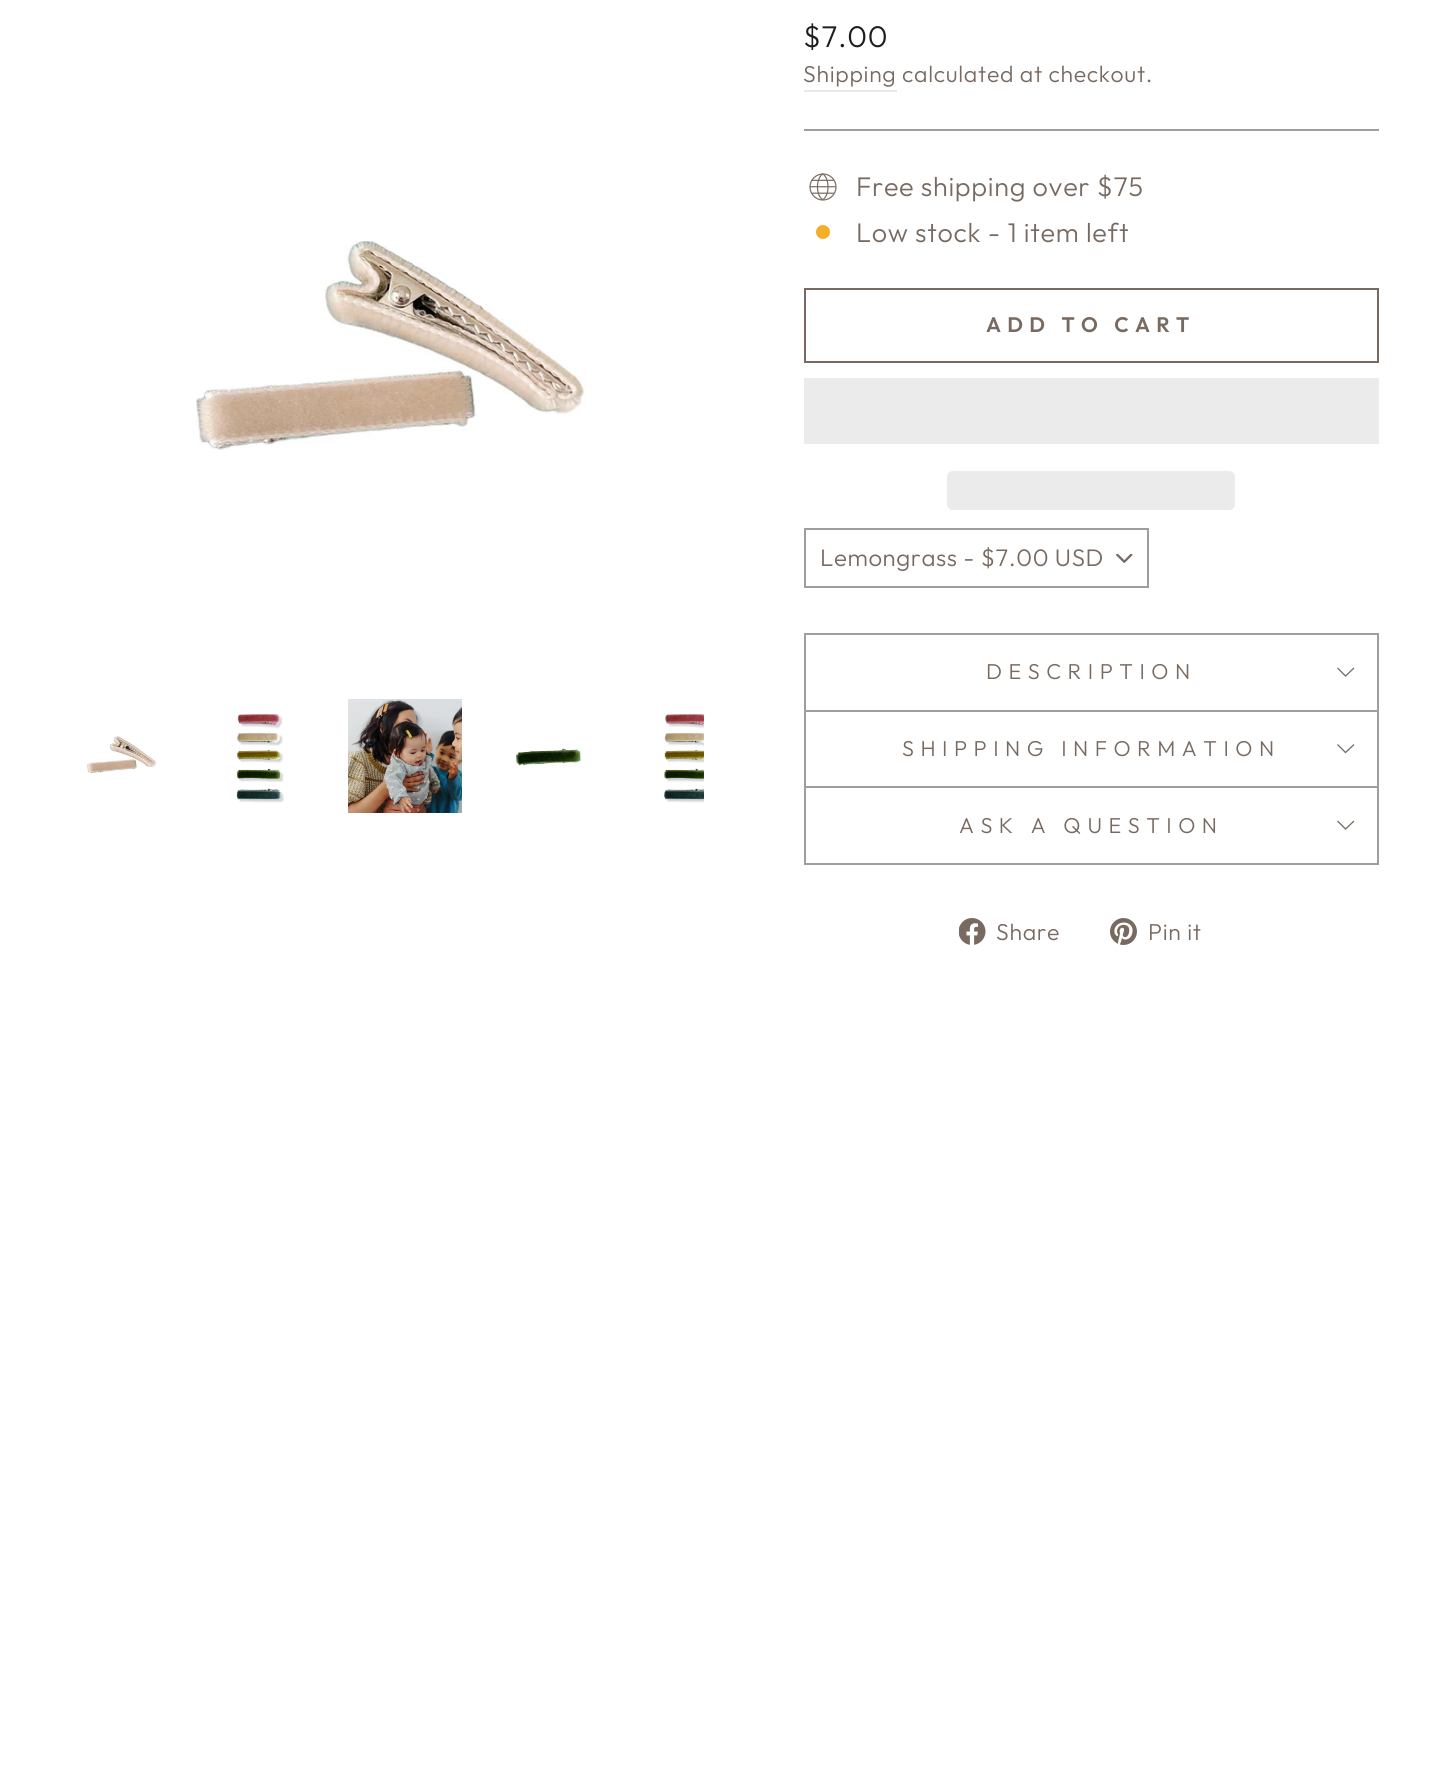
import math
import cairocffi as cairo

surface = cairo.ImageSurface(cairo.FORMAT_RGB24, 1438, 1782)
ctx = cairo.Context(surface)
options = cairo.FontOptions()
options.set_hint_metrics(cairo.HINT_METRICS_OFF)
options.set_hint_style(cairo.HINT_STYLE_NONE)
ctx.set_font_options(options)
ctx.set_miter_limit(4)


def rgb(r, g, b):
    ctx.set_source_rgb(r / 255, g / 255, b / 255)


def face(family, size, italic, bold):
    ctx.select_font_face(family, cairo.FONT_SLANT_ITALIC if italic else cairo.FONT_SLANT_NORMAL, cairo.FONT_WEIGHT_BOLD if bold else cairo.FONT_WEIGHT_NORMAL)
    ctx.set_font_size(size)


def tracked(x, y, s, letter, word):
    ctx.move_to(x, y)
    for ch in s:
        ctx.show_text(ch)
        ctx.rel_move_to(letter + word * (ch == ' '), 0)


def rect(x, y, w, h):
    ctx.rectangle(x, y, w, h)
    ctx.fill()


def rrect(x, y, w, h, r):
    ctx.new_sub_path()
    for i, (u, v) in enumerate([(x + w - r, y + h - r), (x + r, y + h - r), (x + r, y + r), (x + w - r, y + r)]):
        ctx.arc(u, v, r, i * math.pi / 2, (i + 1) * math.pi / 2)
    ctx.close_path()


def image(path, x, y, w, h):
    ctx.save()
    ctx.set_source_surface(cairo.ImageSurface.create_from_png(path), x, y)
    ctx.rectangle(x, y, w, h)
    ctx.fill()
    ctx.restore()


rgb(255, 255, 255)
ctx.paint()
image('image0.png', 196, 241, 390, 209)
image('image1.png', 87, 736, 69, 38)
image('image2.png', 236, 714, 48, 89)
image('image3.png', 348, 699, 114, 114)
image('image4.png', 516, 748, 65, 18)
image('image5.png', 664, 714, 40, 89)
face('Outfit Light', 30, 0, 0)
rgb(28, 29, 29)
tracked(803, 47, '$7.00', 0.7, 0)
rgb(235, 233, 231)
rect(804, 90, 93, 2)
face('Outfit Light', 23, 0, 0)
rgb(120, 106, 96)
tracked(803, 82, 'Shipping', 0.7, 0)
tracked(902, 82, 'calculated at checkout.', 0.7, 0)
rgb(158, 158, 156)
rect(804, 129, 575, 2)
image('image6.png', 809, 173, 28, 28)
face('Outfit Light', 27, 0, 0)
rgb(120, 106, 96)
tracked(856, 196, 'Free shipping over $75', 0.7, 0)
rgb(244, 175, 41)
ctx.new_path()
ctx.arc(823, 232, 7, 0, 2 * math.pi)
ctx.fill()
rgb(120, 106, 96)
tracked(856, 242, 'Low stock - 1 item left', 0.7, 0)
ctx.rectangle(805, 289, 573, 73)
ctx.stroke()
face('Outfit SemiBold', 21, 0, 0)
tracked(986, 332, 'ADD TO CART', 6.25, 0)
rgb(235, 235, 235)
rect(804, 378, 575, 66)
rrect(947, 471, 288, 39, 6)
ctx.fill()
image('image7.png', 1116, 554, 17, 9)
ctx.rectangle(805, 529, 343, 58)
rgb(158, 158, 156)
ctx.stroke()
face('Outfit Light', 24, 0, 0)
rgb(120, 106, 96)
tracked(820, 566, 'Lemongrass - $7.00 USD', 0.6, 0)
rgb(158, 158, 156)
rect(804, 710, 575, 2)
rect(804, 633, 575, 2)
rect(1377, 633, 2, 77)
rect(804, 633, 2, 77)
face('Outfit Light', 21.6, 0, 0)
rgb(120, 106, 96)
tracked(986, 679, 'DESCRIPTION', 6.5, 0)
ctx.new_path()
ctx.move_to(1337.5, 668)
ctx.line_to(1345.5, 676)
ctx.line_to(1354, 668)
ctx.set_line_width(1.3)
ctx.stroke()
rgb(158, 158, 156)
rect(804, 786, 575, 2)
rect(1377, 711, 2, 75)
rect(804, 711, 2, 75)
rgb(120, 106, 96)
tracked(902, 756, 'SHIPPING INFORMATION', 6.5, 0)
ctx.new_path()
ctx.move_to(1337.5, 744.5)
ctx.line_to(1345.5, 752.5)
ctx.line_to(1354, 744.5)
ctx.stroke()
rgb(158, 158, 156)
rect(804, 863, 575, 2)
rect(1377, 788, 2, 75)
rect(804, 788, 2, 75)
rgb(120, 106, 96)
tracked(959, 833, 'ASK A QUESTION', 6.5, 0)
ctx.new_path()
ctx.move_to(1337.5, 821)
ctx.line_to(1345.5, 829)
ctx.line_to(1354, 821)
ctx.stroke()
image('image8.png', 959, 918, 27, 27)
face('Outfit Light', 23, 0, 0)
tracked(996, 940, 'Share', 0.7, 0)
image('image9.png', 1110, 918, 27, 27)
tracked(1148, 940, 'Pin it', 0.7, 0)
surface.write_to_png('render.png')
